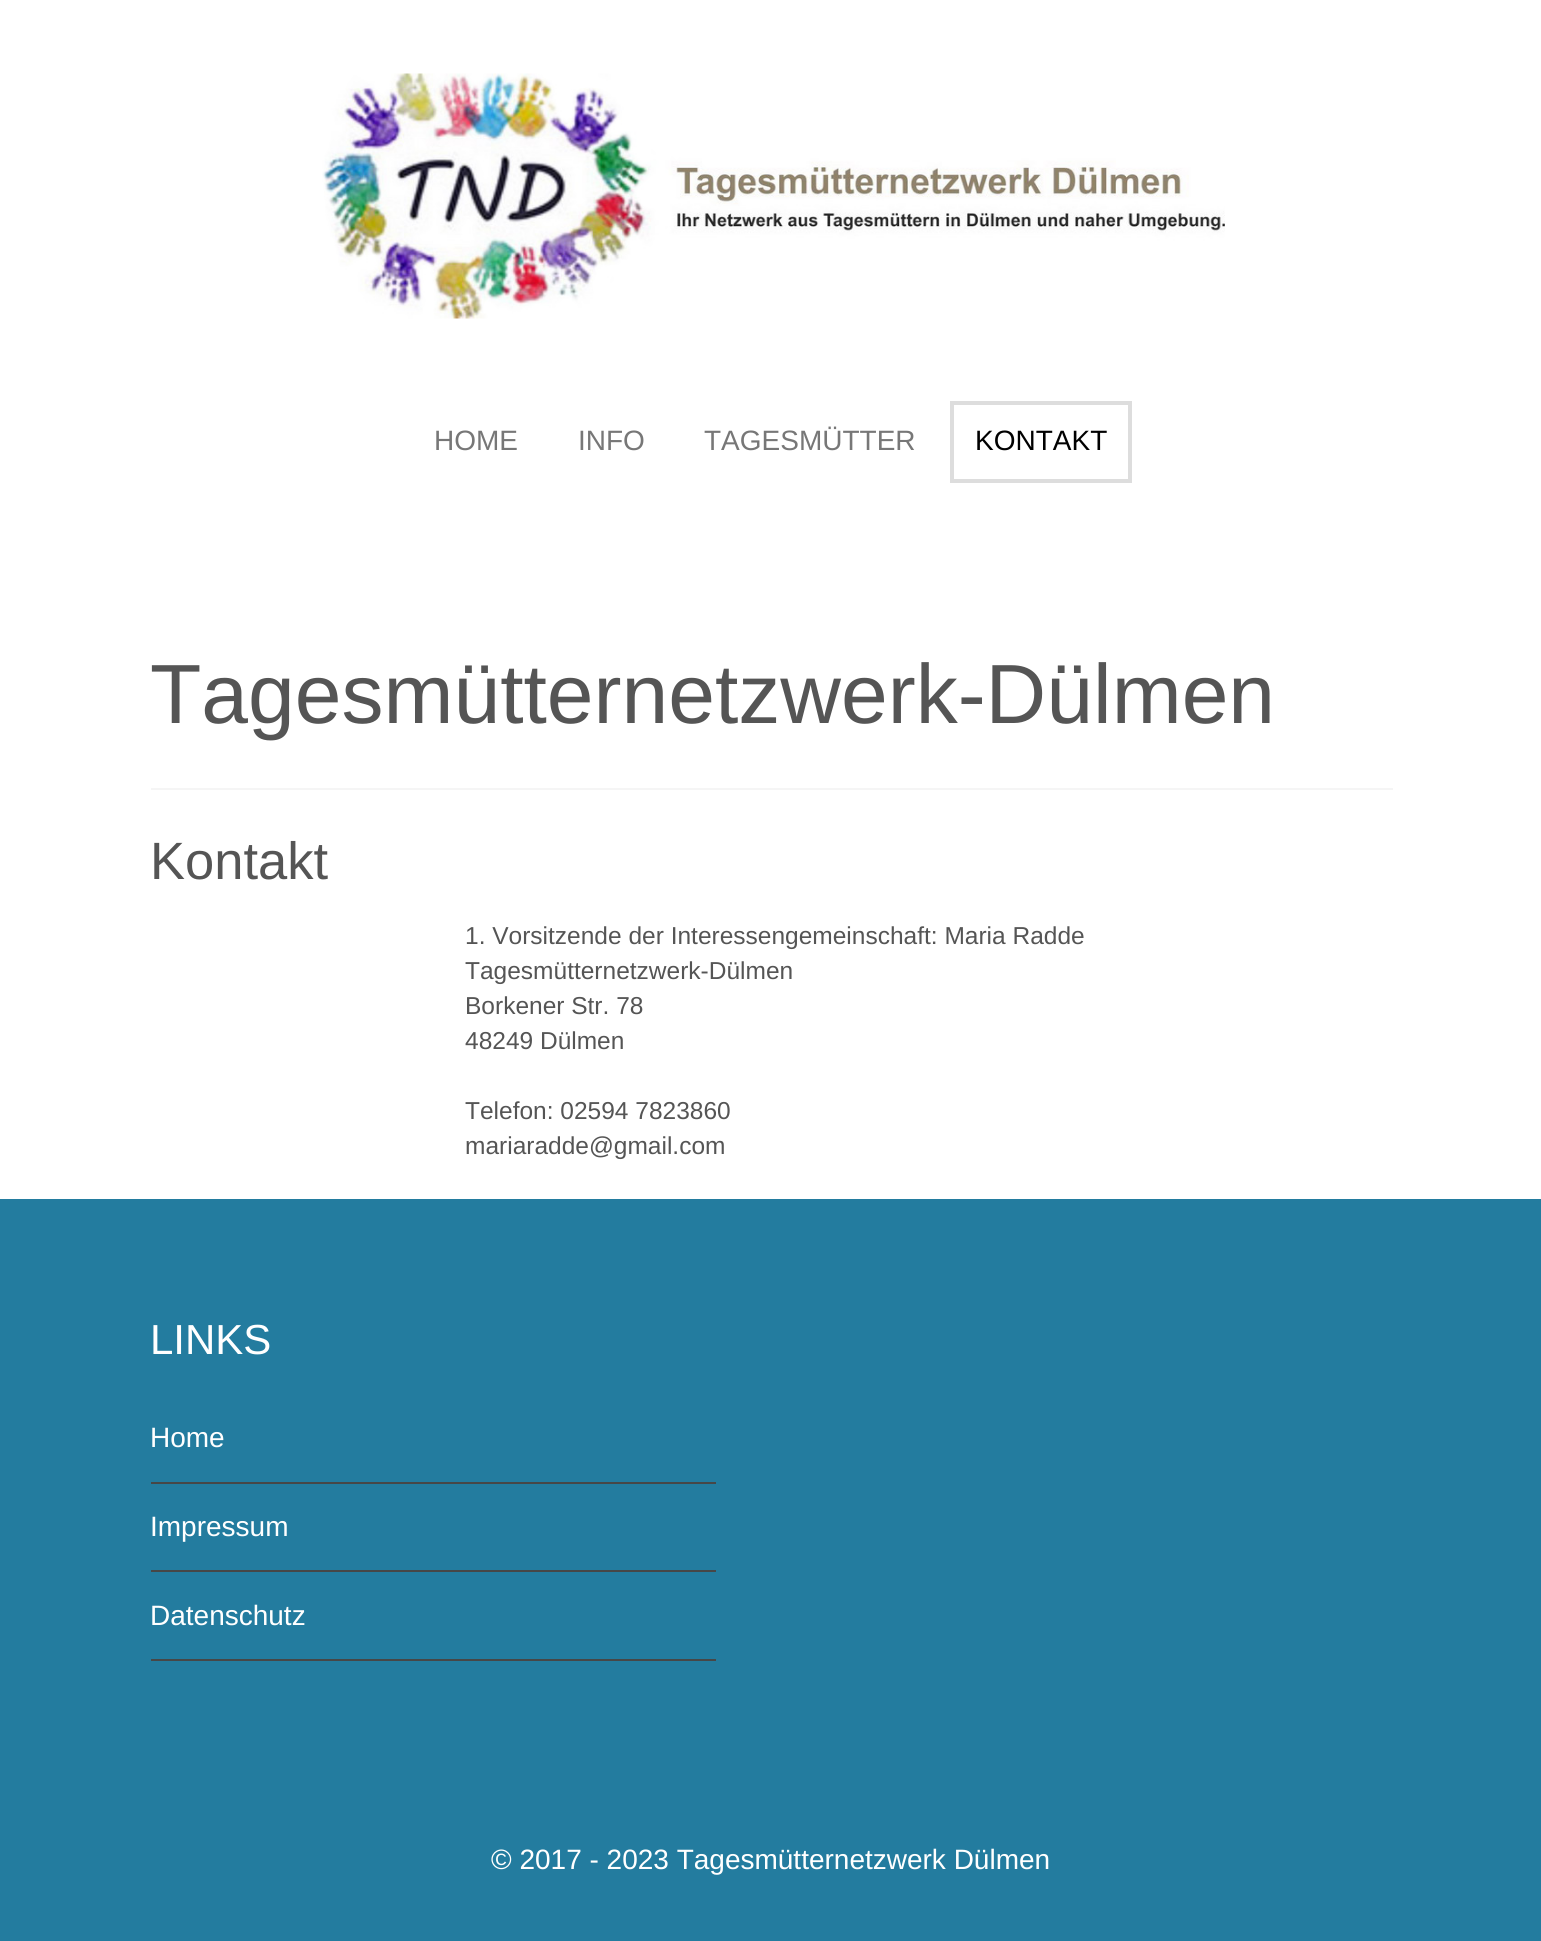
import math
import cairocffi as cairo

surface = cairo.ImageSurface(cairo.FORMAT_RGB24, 1541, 1941)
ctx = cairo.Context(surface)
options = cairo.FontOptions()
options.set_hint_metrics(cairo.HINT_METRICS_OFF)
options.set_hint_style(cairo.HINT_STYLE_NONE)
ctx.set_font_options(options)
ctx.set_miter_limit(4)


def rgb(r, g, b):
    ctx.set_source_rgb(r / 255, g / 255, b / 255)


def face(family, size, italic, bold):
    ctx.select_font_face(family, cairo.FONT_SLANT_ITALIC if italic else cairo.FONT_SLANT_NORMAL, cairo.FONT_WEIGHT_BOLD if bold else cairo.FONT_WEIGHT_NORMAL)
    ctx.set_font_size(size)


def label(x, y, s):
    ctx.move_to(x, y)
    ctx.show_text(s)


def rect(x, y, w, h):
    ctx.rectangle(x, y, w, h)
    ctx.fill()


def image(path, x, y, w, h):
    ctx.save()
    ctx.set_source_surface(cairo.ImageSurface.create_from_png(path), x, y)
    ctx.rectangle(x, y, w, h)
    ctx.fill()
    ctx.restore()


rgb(255, 255, 255)
ctx.paint()
image('image0.png', 322, 73, 903, 246)
face('Liberation Sans', 28, 0, 0)
rgb(119, 119, 119)
label(434, 450, 'HOME')
label(578, 450, 'INFO')
label(704, 450, 'TAGESMÜTTER')
ctx.rectangle(952, 403, 178, 78)
rgb(221, 221, 221)
ctx.set_line_width(4)
ctx.stroke()
rgb(0, 0, 0)
label(975, 450, 'KONTAKT')
rgb(245, 245, 245)
rect(151, 788, 1242, 2)
face('Liberation Sans', 84, 0, 0)
rgb(85, 85, 85)
label(150, 723, 'Tagesmütternetzwerk-Dülmen')
face('Liberation Sans', 52.5, 0, 0)
label(150, 879, 'Kontakt')
face('Liberation Sans', 24.5, 0, 0)
label(465, 944, '1. Vorsitzende der Interessengemeinschaft: Maria Radde')
label(465, 979, 'Tagesmütternetzwerk-Dülmen')
label(465, 1014, 'Borkener Str. 78')
label(465, 1049, '48249 Dülmen')
label(465, 1119, 'Telefon: 02594 7823860')
label(465, 1154, 'mariaradde@gmail.com')
rgb(35, 124, 159)
rect(0, 1199, 1541, 742)
face('Liberation Sans', 42, 0, 0)
rgb(255, 255, 255)
label(150, 1354, 'LINKS')
face('Liberation Sans', 28, 0, 0)
label(150, 1447, 'Home')
rgb(71, 71, 71)
rect(151, 1482, 565, 2)
rgb(255, 255, 255)
label(150, 1536, 'Impressum')
rgb(71, 71, 71)
rect(151, 1570, 565, 2)
rgb(255, 255, 255)
label(150, 1625, 'Datenschutz')
rgb(71, 71, 71)
rect(151, 1659, 565, 2)
rgb(255, 255, 255)
label(491, 1869, '© 2017 - 2023 Tagesmütternetzwerk Dülmen')
surface.write_to_png('render.png')
